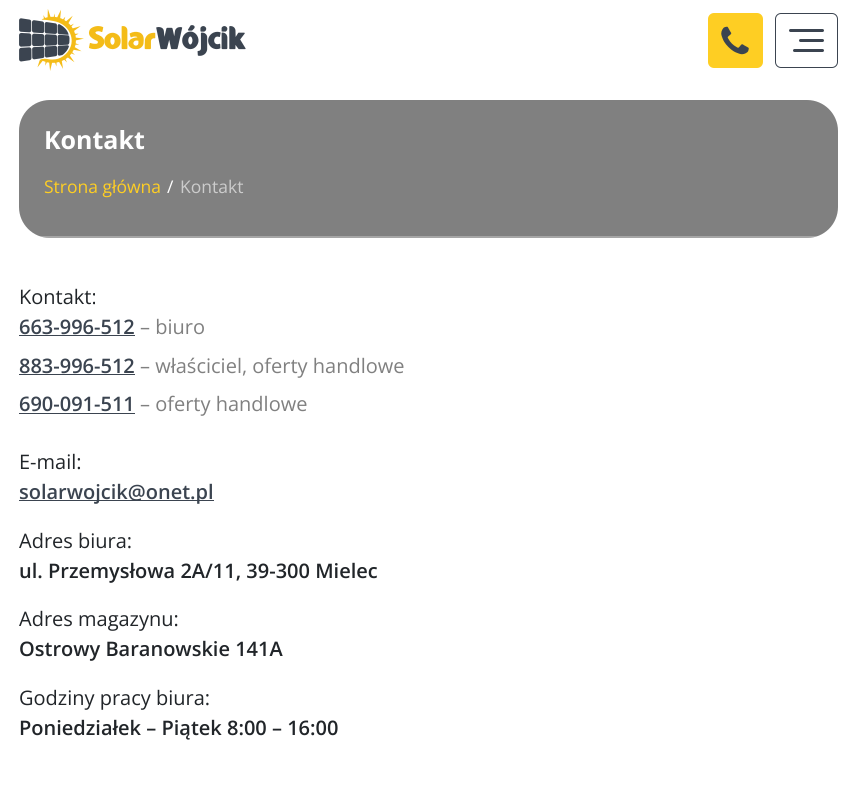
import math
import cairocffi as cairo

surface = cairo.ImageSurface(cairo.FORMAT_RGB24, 856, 802)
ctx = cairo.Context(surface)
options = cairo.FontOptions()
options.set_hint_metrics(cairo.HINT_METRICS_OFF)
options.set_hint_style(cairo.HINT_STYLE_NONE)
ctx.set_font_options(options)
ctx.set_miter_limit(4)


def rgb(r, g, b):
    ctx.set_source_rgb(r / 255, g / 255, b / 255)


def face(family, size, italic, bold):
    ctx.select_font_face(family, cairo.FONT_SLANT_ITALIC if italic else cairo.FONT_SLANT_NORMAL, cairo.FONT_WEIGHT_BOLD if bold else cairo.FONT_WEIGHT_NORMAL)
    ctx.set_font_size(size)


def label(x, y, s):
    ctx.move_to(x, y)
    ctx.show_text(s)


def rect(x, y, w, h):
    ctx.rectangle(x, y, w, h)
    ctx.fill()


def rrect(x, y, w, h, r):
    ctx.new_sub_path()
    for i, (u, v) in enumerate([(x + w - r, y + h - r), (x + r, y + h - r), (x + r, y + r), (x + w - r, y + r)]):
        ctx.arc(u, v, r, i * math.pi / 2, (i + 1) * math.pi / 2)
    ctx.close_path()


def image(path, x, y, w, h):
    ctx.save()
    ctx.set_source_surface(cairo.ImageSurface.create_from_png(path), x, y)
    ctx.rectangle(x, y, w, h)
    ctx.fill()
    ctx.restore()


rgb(255, 255, 255)
ctx.paint()
image('image0.png', 19, 9, 227, 62)
rgb(254, 206, 35)
rrect(708, 13, 55, 55, 6)
ctx.fill()
image('image1.png', 721, 26, 28, 29)
rrect(775.5, 13.5, 62, 54, 5.5)
rgb(59, 68, 80)
ctx.set_line_width(1)
ctx.stroke()
rrect(789, 29, 35, 3, 1.5)
ctx.fill()
rrect(799, 39, 25, 3, 1.5)
ctx.fill()
rrect(793, 49, 31, 3, 1.5)
ctx.fill()
rgb(128, 128, 128)
rrect(19, 100, 819, 138, 31)
ctx.fill()
face('Open Sans', 25, 0, 1)
rgb(255, 255, 255)
label(44, 149, 'Kontakt')
face('Open Sans', 17.5, 0, 0)
rgb(254, 206, 35)
label(44, 193, 'Strona główna')
rgb(255, 255, 255)
label(167, 193, '/')
rgb(204, 204, 204)
label(180, 193, 'Kontakt')
ctx.set_source_rgba(1, 1, 1, 0.3)
ctx.new_path()
ctx.move_to(50, 238)
ctx.line_to(807, 238)
ctx.curve_to(811, 238, 815, 237, 818, 236)
ctx.line_to(39, 236)
ctx.curve_to(42, 237, 46, 238, 50, 238)
ctx.close_path()
ctx.fill()
face('Open Sans', 20, 0, 0)
rgb(33, 37, 41)
label(19, 304, 'Kontakt:')
face('Open Sans SemiBold', 20, 0, 0)
rgb(59, 68, 80)
label(19, 334, '663-996-512')
rect(19, 335, 116, 1)
face('Open Sans', 20, 0, 0)
rgb(128, 128, 128)
label(140, 334, '– biuro')
face('Open Sans SemiBold', 20, 0, 0)
rgb(59, 68, 80)
label(19, 373, '883-996-512')
rect(19, 374, 116, 1)
face('Open Sans', 20, 0, 0)
rgb(128, 128, 128)
label(140, 373, '– właściciel, oferty handlowe')
face('Open Sans SemiBold', 20, 0, 0)
rgb(59, 68, 80)
label(19, 411, '690-091-511')
rect(19, 413, 116, 1)
face('Open Sans', 20, 0, 0)
rgb(128, 128, 128)
label(140, 411, '– oferty handlowe')
rgb(33, 37, 41)
label(19, 469, 'E-mail:')
rgb(59, 68, 80)
rect(19, 500, 195, 1)
face('Open Sans SemiBold', 20, 0, 0)
label(19, 499, 'solarwojcik@onet.pl')
face('Open Sans', 20, 0, 0)
rgb(33, 37, 41)
label(19, 548, 'Adres biura:')
face('Open Sans SemiBold', 20, 0, 0)
label(19, 578, 'ul. Przemysłowa 2A/11, 39-300 Mielec')
face('Open Sans', 20, 0, 0)
label(19, 626, 'Adres magazynu:')
face('Open Sans SemiBold', 20, 0, 0)
label(19, 656, 'Ostrowy Baranowskie 141A')
face('Open Sans', 20, 0, 0)
label(19, 705, 'Godziny pracy biura:')
face('Open Sans SemiBold', 20, 0, 0)
label(19, 735, 'Poniedziałek – Piątek 8:00 – 16:00')
surface.write_to_png('render.png')
